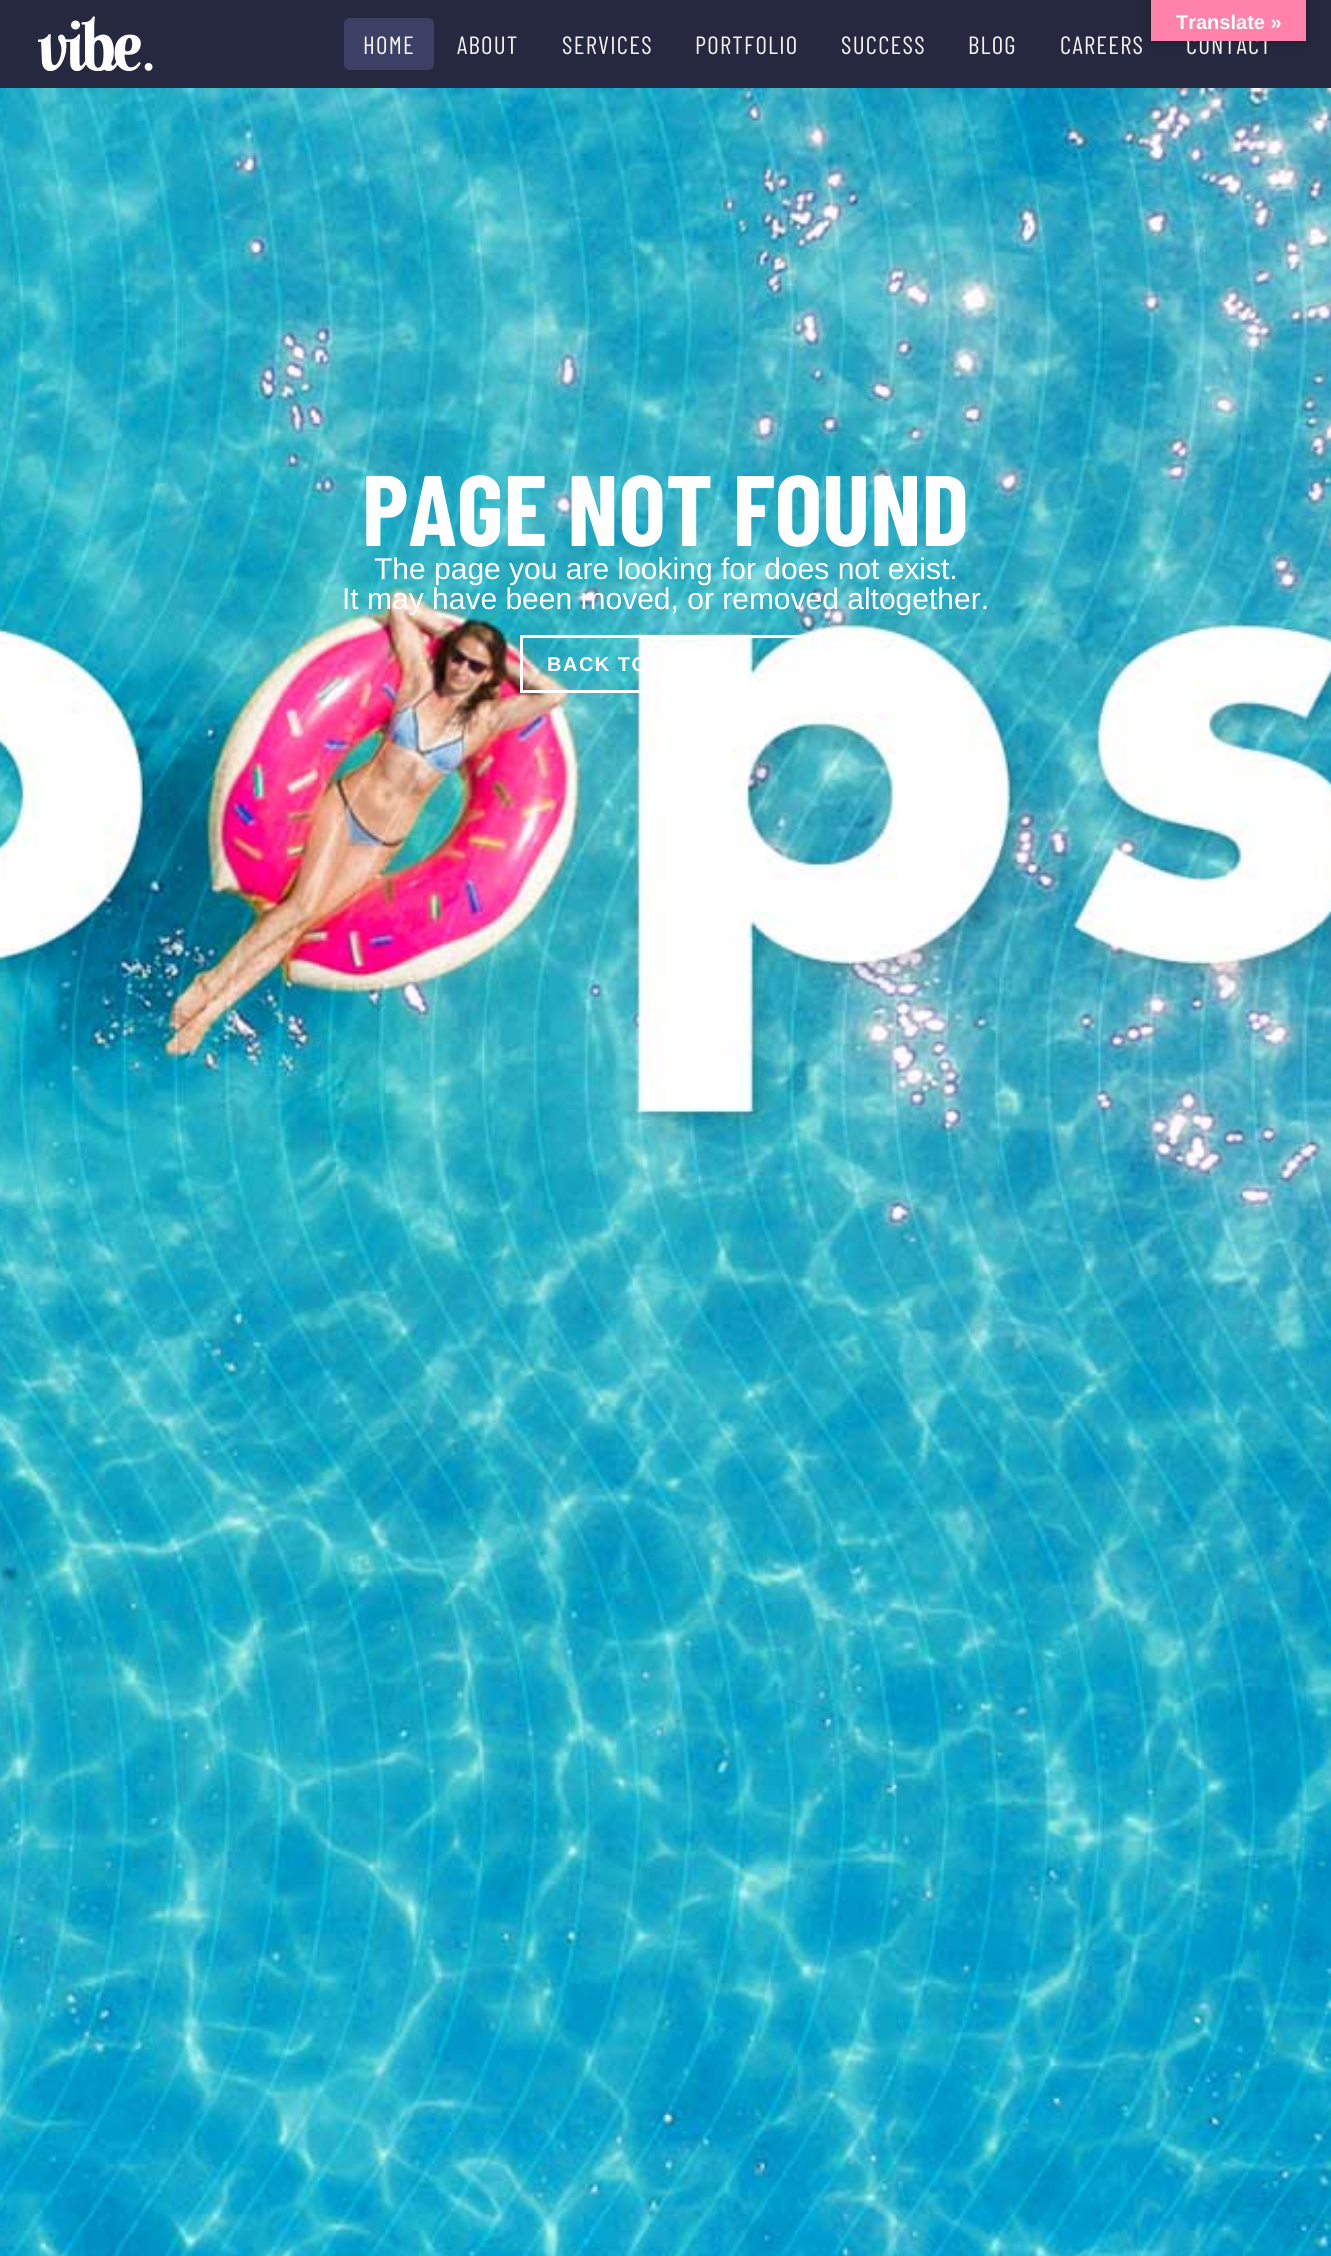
import math
import cairocffi as cairo

surface = cairo.ImageSurface(cairo.FORMAT_RGB24, 1331, 2256)
ctx = cairo.Context(surface)
options = cairo.FontOptions()
options.set_hint_metrics(cairo.HINT_METRICS_OFF)
options.set_hint_style(cairo.HINT_STYLE_NONE)
ctx.set_font_options(options)
ctx.set_miter_limit(4)


def rgb(r, g, b):
    ctx.set_source_rgb(r / 255, g / 255, b / 255)


def face(family, size, italic, bold):
    ctx.select_font_face(family, cairo.FONT_SLANT_ITALIC if italic else cairo.FONT_SLANT_NORMAL, cairo.FONT_WEIGHT_BOLD if bold else cairo.FONT_WEIGHT_NORMAL)
    ctx.set_font_size(size)


def label(x, y, s):
    ctx.move_to(x, y)
    ctx.show_text(s)


def tracked(x, y, s, letter, word):
    ctx.move_to(x, y)
    for ch in s:
        ctx.show_text(ch)
        ctx.rel_move_to(letter + word * (ch == ' '), 0)


def rect(x, y, w, h):
    ctx.rectangle(x, y, w, h)
    ctx.fill()


def rrect(x, y, w, h, r):
    ctx.new_sub_path()
    for i, (u, v) in enumerate([(x + w - r, y + h - r), (x + r, y + h - r), (x + r, y + r), (x + w - r, y + r)]):
        ctx.arc(u, v, r, i * math.pi / 2, (i + 1) * math.pi / 2)
    ctx.close_path()


def soft_shadow(x, y, w, h, r, blur, alpha):
    ctx.push_group_with_content(cairo.CONTENT_ALPHA)
    ctx.set_operator(cairo.OPERATOR_SOURCE)
    for i in range(15, -16, -2):
        e = blur * i / 6
        if min(w, h) + 2 * e > 0:
            ctx.set_source_rgba(0, 0, 0, alpha * math.erfc((i - 1) / 8.5) / 2)
            rrect(x - e, y - e, w + 2 * e, h + 2 * e, max(0, min(r + e + blur * .6, min(w, h) / 2 + e)))
            ctx.fill()
    ctx.mask(ctx.pop_group())


def image(path, x, y, w, h):
    ctx.save()
    ctx.set_source_surface(cairo.ImageSurface.create_from_png(path), x, y)
    ctx.rectangle(x, y, w, h)
    ctx.fill()
    ctx.restore()


rgb(255, 255, 255)
ctx.paint()
rgb(38, 40, 63)
rect(0, 0, 1331, 88)
rgb(0, 0, 0)
soft_shadow(1151, 0, 155, 41, 0, 5.5, 0.3)
face('Barlow Condensed', 25, 0, 0)
rgb(242, 242, 242)
tracked(1186, 54, 'CONTACT', 1.25, 0)
rgb(255, 130, 171)
rect(1151, 0, 155, 41)
face('Liberation Sans', 20, 0, 1)
rgb(255, 255, 255)
label(1176, 29, 'Translate »')
image('image0.png', 38, 16, 115, 55)
rgb(61, 64, 101)
rrect(344, 18, 90, 52, 6)
ctx.fill()
face('Barlow Condensed', 25, 0, 0)
rgb(242, 242, 242)
tracked(363, 54, 'HOME', 1.25, 0)
tracked(457, 54, 'ABOUT', 1.25, 0)
tracked(562, 54, 'SERVICES', 1.25, 0)
tracked(695, 54, 'PORTFOLIO', 1.25, 0)
tracked(841, 54, 'SUCCESS', 1.25, 0)
tracked(968, 54, 'BLOG', 1.25, 0)
tracked(1060, 54, 'CAREERS', 1.25, 0)
image('image1.png', 0, 88, 1331, 2168)
face('Barlow Condensed', 100, 0, 1)
rgb(255, 255, 255)
label(362, 546, 'PAGE NOT FOUND')
face('Liberation Sans', 30, 0, 0)
label(374, 579, 'The page you are looking for does not exist.')
label(342, 609, 'It may have been moved, or removed altogether.')
ctx.rectangle(521.5, 636.5, 288, 55)
ctx.set_line_width(3)
ctx.stroke()
face('Liberation Sans', 20, 0, 1)
tracked(547, 671, 'BACK TO', 1.5, 0)
surface.write_to_png('render.png')
